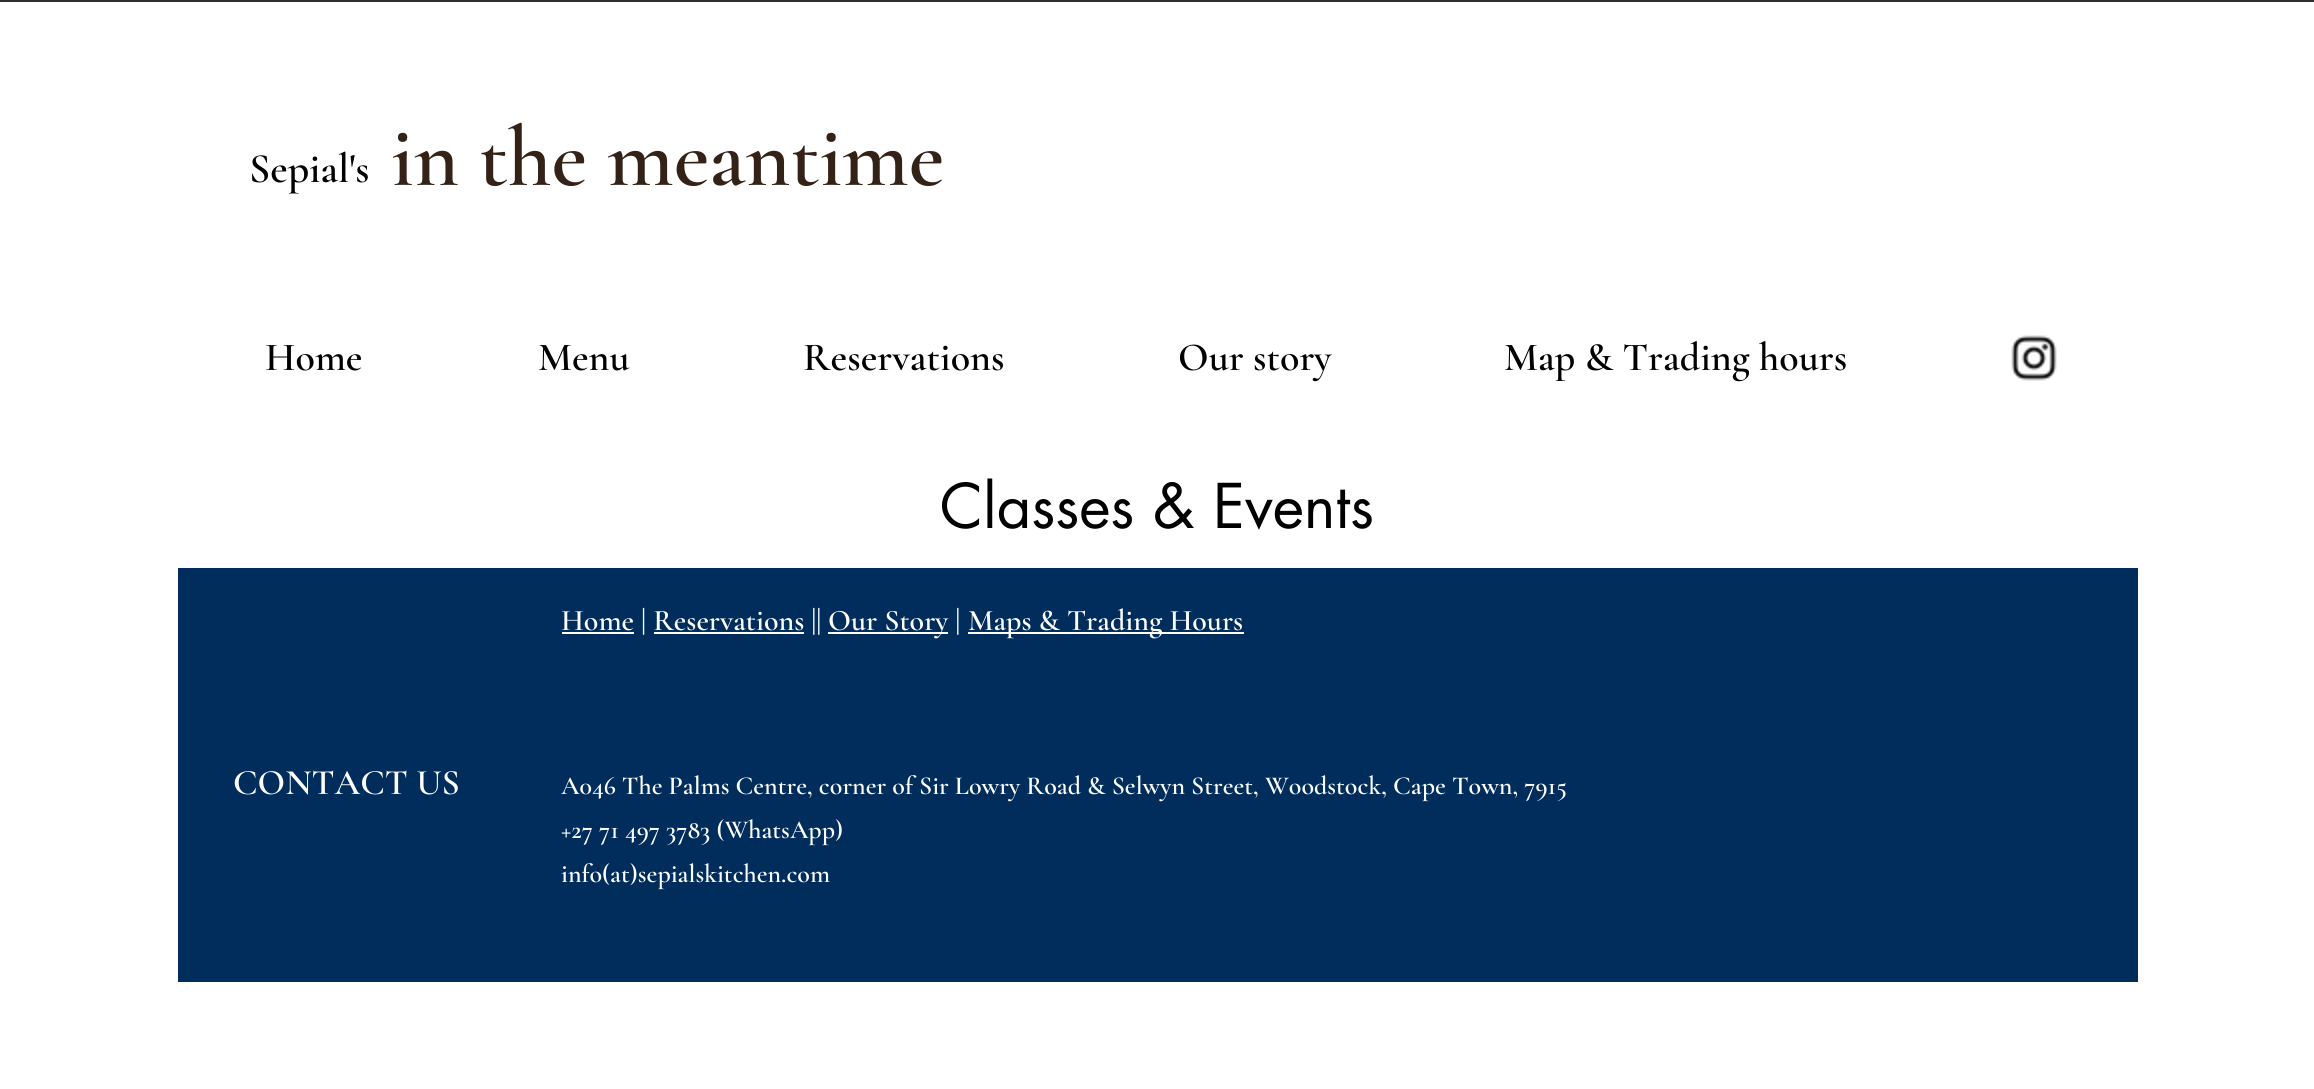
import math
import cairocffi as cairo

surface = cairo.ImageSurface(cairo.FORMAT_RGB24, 2314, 1089)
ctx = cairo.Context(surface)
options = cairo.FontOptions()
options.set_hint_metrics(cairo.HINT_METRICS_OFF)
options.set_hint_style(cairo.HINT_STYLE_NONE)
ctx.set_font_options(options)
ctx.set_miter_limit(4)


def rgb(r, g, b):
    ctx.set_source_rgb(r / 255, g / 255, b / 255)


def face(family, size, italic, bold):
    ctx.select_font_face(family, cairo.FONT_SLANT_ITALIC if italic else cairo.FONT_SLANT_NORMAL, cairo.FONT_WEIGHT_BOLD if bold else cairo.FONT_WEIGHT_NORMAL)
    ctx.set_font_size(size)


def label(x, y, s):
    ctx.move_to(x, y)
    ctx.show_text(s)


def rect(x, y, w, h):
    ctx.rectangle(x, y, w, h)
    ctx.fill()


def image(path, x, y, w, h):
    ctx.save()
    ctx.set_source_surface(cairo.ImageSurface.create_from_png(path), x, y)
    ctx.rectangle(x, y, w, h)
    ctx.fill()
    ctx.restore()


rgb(255, 255, 255)
ctx.paint()
rgb(47, 46, 46)
rect(0, 0, 2314, 2)
face('Cormorant Garamond SemiBold', 42, 0, 0)
rgb(0, 0, 0)
label(249, 182, 'Sepial\'s')
face('Cormorant Garamond SemiBold', 86, 0, 0)
rgb(52, 34, 22)
label(391, 185, 'in the meantime')
face('Cormorant Garamond SemiBold', 40, 0, 0)
rgb(0, 0, 0)
label(265, 370, 'Home')
label(538, 370, 'Menu')
label(803, 370, 'Reservations')
label(1178, 370, 'Our story')
label(1504, 370, 'Map & Trading hours')
image('image0.png', 2011, 335, 46, 46)
face('futura', 60, 0, 0)
label(940, 528, 'Classes & Events')
rgb(0, 45, 92)
rect(178, 568, 1960, 414)
rgb(255, 255, 255)
rect(562, 632, 72, 2)
face('Cormorant Garamond SemiBold', 30, 0, 0)
label(561, 630, 'Home | Reservations ||')
rect(654, 632, 150, 2)
rect(828, 632, 120, 2)
label(828, 630, 'Our Story |')
rect(968, 632, 276, 2)
label(968, 630, 'Maps & Trading Hours')
face('Cormorant Garamond SemiBold', 36, 0, 0)
label(233, 794, 'CONTACT US')
face('Cormorant Garamond SemiBold', 26, 0, 0)
label(561, 794, 'A046 The Palms Centre, corner of Sir Lowry Road & Selwyn Street, Woodstock, Cape Town, 7915')
label(561, 838, '+27 71 497 3783 (WhatsApp)')
label(561, 882, 'info(at)sepialskitchen.com')
surface.write_to_png('render.png')
